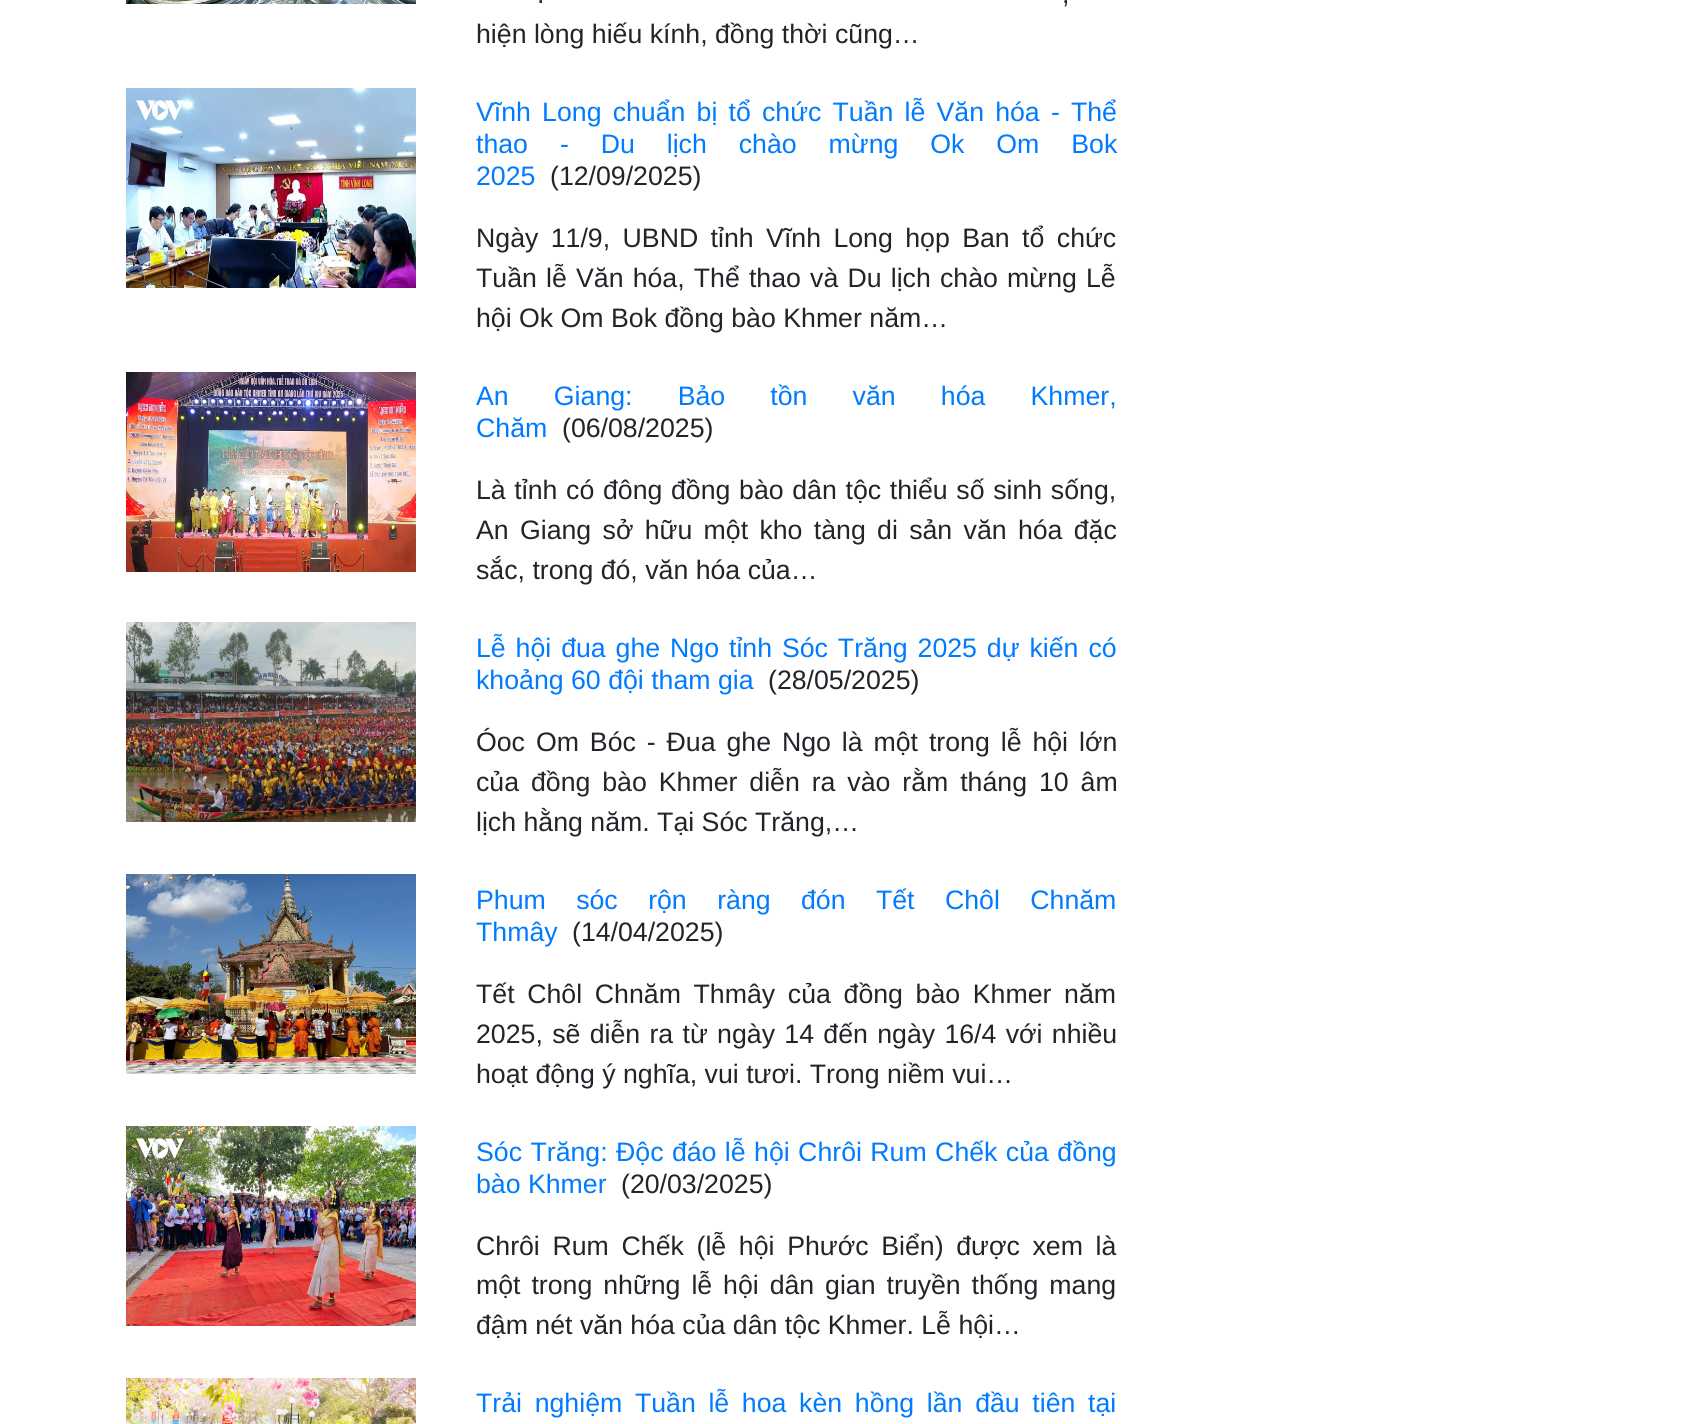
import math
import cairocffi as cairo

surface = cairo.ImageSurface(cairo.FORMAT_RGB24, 1692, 1424)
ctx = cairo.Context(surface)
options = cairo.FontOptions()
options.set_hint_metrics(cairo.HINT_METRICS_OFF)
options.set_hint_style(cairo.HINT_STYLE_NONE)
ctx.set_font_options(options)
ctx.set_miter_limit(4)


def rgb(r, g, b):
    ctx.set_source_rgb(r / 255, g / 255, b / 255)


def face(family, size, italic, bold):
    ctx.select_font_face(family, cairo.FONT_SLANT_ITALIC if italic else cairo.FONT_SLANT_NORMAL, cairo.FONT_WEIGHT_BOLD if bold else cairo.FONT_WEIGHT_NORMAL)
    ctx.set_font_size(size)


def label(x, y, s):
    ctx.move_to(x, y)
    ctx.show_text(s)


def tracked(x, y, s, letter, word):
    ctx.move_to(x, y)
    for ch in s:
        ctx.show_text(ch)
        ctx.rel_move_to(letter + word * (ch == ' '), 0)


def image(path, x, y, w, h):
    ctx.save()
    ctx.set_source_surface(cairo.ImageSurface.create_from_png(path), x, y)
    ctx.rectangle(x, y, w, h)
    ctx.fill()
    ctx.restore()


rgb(255, 255, 255)
ctx.paint()
image('image0.png', 126, 0, 290, 4)
face('Liberation Sans', 26.7, 0, 0)
rgb(33, 37, 41)
tracked(537, 3, '.', 0, 2)
tracked(1062, 3, ',', 0, 2)
label(476, 43, 'hiện lòng hiếu kính, đồng thời cũng…')
image('image1.png', 126, 88, 290, 200)
rgb(0, 123, 255)
tracked(476, 121, 'Vĩnh Long chuẩn bị tổ chức Tuần lễ Văn hóa - Thể', 0, 3.75)
tracked(476, 153, 'thao - Du lịch chào mừng Ok Om Bok', 0, 24.5)
label(476, 185, '2025')
rgb(33, 37, 41)
label(550, 185, '(12/09/2025)')
tracked(476, 247, 'Ngày 11/9, UBND tỉnh Vĩnh Long họp Ban tổ chức', 0, 5)
tracked(476, 287, 'Tuần lễ Văn hóa, Thể thao và Du lịch chào mừng Lễ', 0, 1.75)
label(476, 327, 'hội Ok Om Bok đồng bào Khmer năm…')
image('image2.png', 126, 372, 290, 200)
rgb(0, 123, 255)
tracked(476, 405, 'An Giang: Bảo tồn văn hóa Khmer,', 0, 37.75)
label(476, 437, 'Chăm')
rgb(33, 37, 41)
label(562, 437, '(06/08/2025)')
tracked(476, 499, 'Là tỉnh có đông đồng bào dân tộc thiểu số sinh sống,', 0, 1.25)
tracked(476, 539, 'An Giang sở hữu một kho tàng di sản văn hóa đặc', 0, 3.9)
label(476, 579, 'sắc, trong đó, văn hóa của…')
image('image3.png', 126, 622, 290, 200)
rgb(0, 123, 255)
tracked(476, 657, 'Lễ hội đua ghe Ngo tỉnh Sóc Trăng 2025 dự kiến có', 0, 2.5)
label(476, 689, 'khoảng 60 đội tham gia')
rgb(33, 37, 41)
label(768, 689, '(28/05/2025)')
tracked(476, 751, 'Óoc Om Bóc - Đua ghe Ngo là một trong lễ hội lớn', 0, 3.5)
tracked(476, 791, 'của đồng bào Khmer diễn ra vào rằm tháng 10 âm', 0, 4.5)
label(476, 831, 'lịch hằng năm. Tại Sóc Trăng,…')
image('image4.png', 126, 874, 290, 200)
rgb(0, 123, 255)
tracked(476, 909, 'Phum sóc rộn ràng đón Tết Chôl Chnăm', 0, 23)
label(476, 941, 'Thmây')
rgb(33, 37, 41)
label(572, 941, '(14/04/2025)')
tracked(476, 1003, 'Tết Chôl Chnăm Thmây của đồng bào Khmer năm', 0, 5.25)
tracked(476, 1043, '2025, sẽ diễn ra từ ngày 14 đến ngày 16/4 với nhiều', 0, 1.9)
label(476, 1083, 'hoạt động ý nghĩa, vui tươi. Trong niềm vui…')
image('image5.png', 126, 1126, 290, 200)
rgb(0, 123, 255)
tracked(476, 1161, 'Sóc Trăng: Độc đáo lễ hội Chrôi Rum Chếk của đồng', 0, 1)
label(476, 1193, 'bào Khmer')
rgb(33, 37, 41)
label(621, 1193, '(20/03/2025)')
tracked(476, 1255, 'Chrôi Rum Chếk (lễ hội Phước Biển) được xem là', 0, 5.25)
tracked(476, 1294, 'một trong những lễ hội dân gian truyền thống mang', 0, 3.5)
label(476, 1334, 'đậm nét văn hóa của dân tộc Khmer. Lễ hội…')
image('image6.png', 126, 1378, 290, 46)
rgb(0, 123, 255)
tracked(476, 1412, 'Trải nghiệm Tuần lễ hoa kèn hồng lần đầu tiên tại', 0, 5.25)
surface.write_to_png('render.png')
